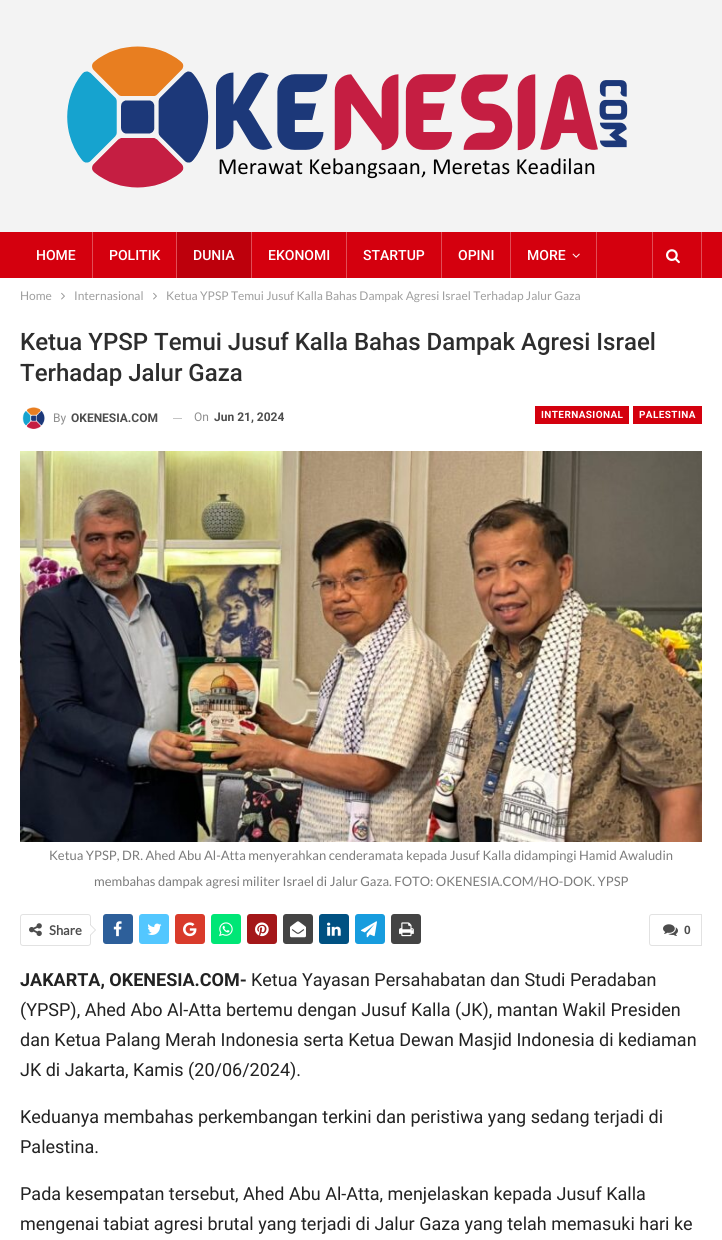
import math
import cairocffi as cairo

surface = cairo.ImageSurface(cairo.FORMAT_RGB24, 722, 1240)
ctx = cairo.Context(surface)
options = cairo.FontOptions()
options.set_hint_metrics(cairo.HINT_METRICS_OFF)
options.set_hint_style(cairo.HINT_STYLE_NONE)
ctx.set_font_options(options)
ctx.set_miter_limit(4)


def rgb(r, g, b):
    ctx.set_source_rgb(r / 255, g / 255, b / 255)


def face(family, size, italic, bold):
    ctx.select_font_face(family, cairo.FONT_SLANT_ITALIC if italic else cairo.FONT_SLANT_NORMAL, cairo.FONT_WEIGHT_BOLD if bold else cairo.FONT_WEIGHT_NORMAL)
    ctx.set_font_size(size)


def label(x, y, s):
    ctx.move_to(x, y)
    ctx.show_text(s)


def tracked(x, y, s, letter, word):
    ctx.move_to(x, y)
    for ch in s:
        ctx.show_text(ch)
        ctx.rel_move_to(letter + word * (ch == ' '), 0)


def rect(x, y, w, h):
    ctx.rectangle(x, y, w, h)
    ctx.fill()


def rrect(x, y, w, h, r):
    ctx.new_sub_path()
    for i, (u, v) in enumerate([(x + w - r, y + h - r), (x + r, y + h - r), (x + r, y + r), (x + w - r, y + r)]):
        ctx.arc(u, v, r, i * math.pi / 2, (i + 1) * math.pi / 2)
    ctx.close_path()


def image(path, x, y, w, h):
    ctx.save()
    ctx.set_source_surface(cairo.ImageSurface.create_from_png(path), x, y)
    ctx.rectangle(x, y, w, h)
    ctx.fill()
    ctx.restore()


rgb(243, 243, 243)
ctx.paint()
image('image0.png', 67, 46, 561, 142)
rgb(212, 0, 14)
rect(0, 232, 722, 46)
rgb(225, 77, 86)
rect(652, 232, 1, 46)
rect(701, 232, 1, 46)
rect(92, 232, 1, 46)
face('Roboto Medium', 14, 0, 0)
rgb(255, 255, 255)
label(36, 260, 'HOME')
rgb(225, 77, 86)
rect(176, 232, 1, 46)
rgb(255, 255, 255)
label(109, 260, 'POLITIK')
rgb(225, 77, 86)
rect(251, 232, 1, 46)
rgb(189, 0, 12)
rect(177, 232, 74, 46)
rgb(255, 255, 255)
label(193, 260, 'DUNIA')
rgb(225, 77, 86)
rect(346, 232, 1, 46)
rgb(255, 255, 255)
label(268, 260, 'EKONOMI')
rgb(225, 77, 86)
rect(441, 232, 1, 46)
rgb(255, 255, 255)
label(363, 260, 'STARTUP')
rgb(225, 77, 86)
rect(510, 232, 1, 46)
rgb(255, 255, 255)
label(458, 260, 'OPINI')
rgb(225, 77, 86)
rect(596, 232, 1, 46)
rgb(255, 255, 255)
label(527, 260, 'MORE')
image('image1.png', 572, 253, 8, 5)
image('image2.png', 666, 249, 14, 15)
rect(0, 278, 722, 962)
face('Lato', 12, 0, 0)
rgb(158, 158, 158)
label(20, 300, 'Home')
image('image3.png', 61, 292, 4, 8)
label(74, 300, 'Internasional')
image('image3.png', 153, 292, 4, 8)
label(166, 300, 'Ketua YPSP Temui Jusuf Kalla Bahas Dampak Agresi Israel Terhadap Jalur Gaza')
face('Roboto Medium', 24, 0, 0)
rgb(45, 45, 45)
label(20, 350, 'Ketua YPSP Temui Jusuf Kalla Bahas Dampak Agresi Israel')
label(20, 381, 'Terhadap Jalur Gaza')
image('image4.png', 22, 407, 23, 22)
face('Roboto', 12, 0, 0)
rgb(143, 143, 143)
label(53, 422, 'By')
face('Roboto', 12, 0, 1)
rgb(77, 77, 77)
label(71, 422, 'OKENESIA.COM')
rgb(196, 196, 196)
rect(173, 418, 9, 1)
face('Roboto', 12, 0, 0)
rgb(143, 143, 143)
label(194, 421, 'On')
face('Roboto', 12, 0, 1)
rgb(77, 77, 77)
label(214, 421, 'Jun 21, 2024')
rgb(212, 0, 14)
rect(535, 406, 94, 18)
face('Roboto', 10, 0, 1)
rgb(255, 255, 255)
tracked(541, 418, 'INTERNASIONAL', 0.4, 0)
rgb(212, 0, 14)
rect(633, 406, 69, 18)
rgb(255, 255, 255)
tracked(639, 418, 'PALESTINA', 0.4, 0)
image('image5.png', 20, 451, 682, 391)
face('Lato', 13, 0, 0)
rgb(123, 123, 123)
label(49, 860, 'Ketua YPSP, DR. Ahed Abu Al-Atta menyerahkan cenderamata kepada Jusuf Kalla didampingi Hamid Awaludin')
label(94, 886, 'membahas dampak agresi militer Israel di Jalur Gaza. FOTO: OKENESIA.COM/HO-DOK. YPSP')
rrect(20.5, 914.5, 70, 31, 2.5)
rgb(226, 226, 226)
ctx.set_line_width(1)
ctx.stroke()
image('image6.png', 29, 923, 13, 14)
face('Lato', 13, 0, 1)
rgb(77, 77, 77)
label(49, 935, 'Share')
rgb(215, 215, 215)
ctx.new_path()
ctx.move_to(90, 936)
ctx.line_to(90, 924)
ctx.line_to(96, 930)
ctx.close_path()
ctx.fill()
rgb(255, 255, 255)
ctx.new_path()
ctx.move_to(90, 935)
ctx.line_to(90, 925)
ctx.line_to(95, 930)
ctx.close_path()
ctx.fill()
rgb(45, 95, 154)
rrect(103, 914, 30, 30, 3)
ctx.fill()
image('image7.png', 113, 921, 9, 16)
rgb(83, 199, 255)
rrect(139, 914, 30, 30, 3)
ctx.fill()
image('image8.png', 147, 923, 15, 12)
rgb(217, 59, 43)
rrect(175, 914, 30, 30, 3)
ctx.fill()
image('image9.png', 183, 922, 14, 15)
rgb(0, 230, 118)
rrect(211, 914, 30, 30, 3)
ctx.fill()
image('image10.png', 219, 922, 14, 15)
rgb(164, 23, 25)
rrect(247, 914, 30, 30, 3)
ctx.fill()
image('image11.png', 255, 922, 14, 15)
rgb(68, 68, 68)
rrect(283, 914, 30, 30, 3)
ctx.fill()
image('image12.png', 290, 921, 16, 17)
rgb(0, 81, 130)
rrect(319, 914, 30, 30, 3)
ctx.fill()
image('image13.png', 327, 922, 14, 14)
rgb(23, 156, 222)
rrect(355, 914, 30, 30, 3)
ctx.fill()
image('image14.png', 361, 921, 16, 17)
rgb(68, 68, 68)
rrect(391, 914, 30, 30, 3)
ctx.fill()
image('image15.png', 399, 922, 15, 15)
ctx.new_path()
ctx.move_to(652, 914.5)
ctx.line_to(701.5, 914.5)
ctx.line_to(701.5, 945.5)
ctx.line_to(652, 945.5)
ctx.curve_to(650.5, 945.5, 649.5, 944.5, 649.5, 943)
ctx.line_to(649.5, 917)
ctx.curve_to(649.5, 915.5, 650.5, 914.5, 652, 914.5)
ctx.close_path()
rgb(226, 226, 226)
ctx.stroke()
image('image16.png', 663, 924, 15, 12)
face('Liberation Sans', 12, 0, 1)
rgb(77, 77, 77)
label(684, 934, '0')
face('Roboto', 18, 0, 1)
rgb(34, 34, 34)
label(20, 986, 'JAKARTA, OKENESIA.COM-')
face('Roboto', 18, 0, 0)
label(251, 986, 'Ketua Yayasan Persahabatan dan Studi Peradaban')
label(20, 1016, '(YPSP), Ahed Abo Al-Atta bertemu dengan Jusuf Kalla (JK), mantan Wakil Presiden')
label(20, 1046, 'dan Ketua Palang Merah Indonesia serta Ketua Dewan Masjid Indonesia di kediaman')
label(20, 1076, 'JK di Jakarta, Kamis (20/06/2024).')
label(20, 1123, 'Keduanya membahas perkembangan terkini dan peristiwa yang sedang terjadi di')
label(20, 1153, 'Palestina.')
label(20, 1200, 'Pada kesempatan tersebut, Ahed Abu Al-Atta, menjelaskan kepada Jusuf Kalla')
label(20, 1230, 'mengenai tabiat agresi brutal yang terjadi di Jalur Gaza yang telah memasuki hari ke')
surface.write_to_png('render.png')
